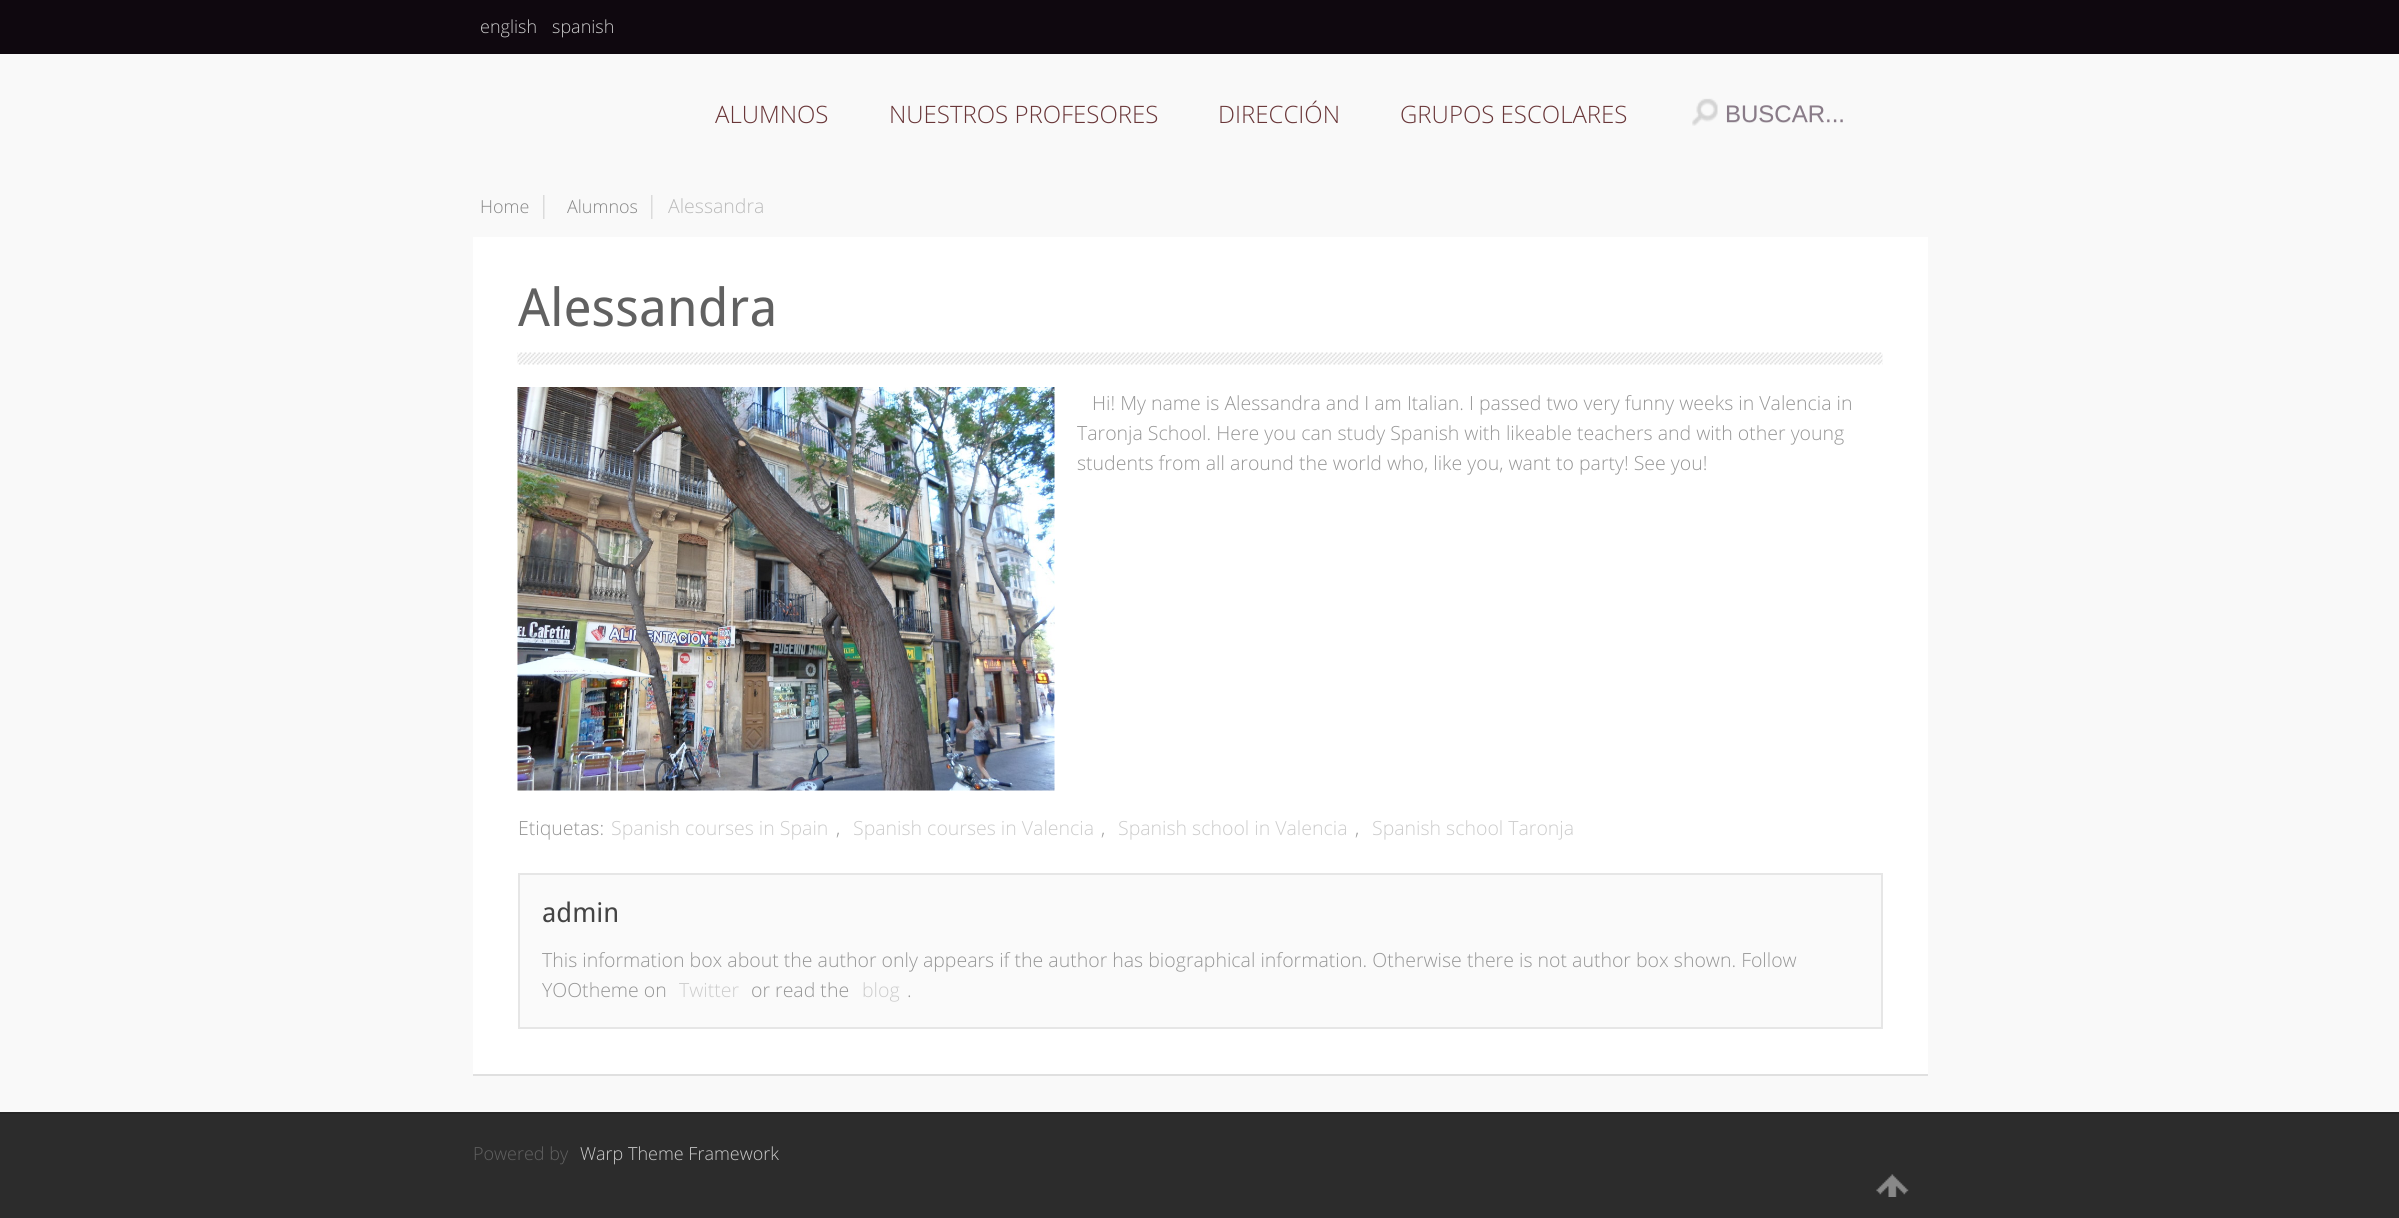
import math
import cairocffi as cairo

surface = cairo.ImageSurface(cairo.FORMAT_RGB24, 2399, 1218)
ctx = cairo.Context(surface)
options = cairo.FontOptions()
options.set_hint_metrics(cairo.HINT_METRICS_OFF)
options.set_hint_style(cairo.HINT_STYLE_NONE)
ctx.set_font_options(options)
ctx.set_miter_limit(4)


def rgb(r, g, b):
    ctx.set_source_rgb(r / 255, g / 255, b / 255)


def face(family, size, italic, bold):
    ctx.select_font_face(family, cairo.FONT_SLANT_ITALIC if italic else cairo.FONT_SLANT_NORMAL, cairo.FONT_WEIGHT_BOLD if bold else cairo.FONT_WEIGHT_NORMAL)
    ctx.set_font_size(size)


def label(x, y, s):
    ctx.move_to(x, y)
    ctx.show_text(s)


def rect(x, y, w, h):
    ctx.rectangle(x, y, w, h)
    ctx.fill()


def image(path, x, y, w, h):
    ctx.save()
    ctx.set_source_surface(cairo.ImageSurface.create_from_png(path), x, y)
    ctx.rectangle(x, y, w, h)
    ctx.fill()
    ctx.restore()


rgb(44, 44, 44)
ctx.paint()
rgb(15, 8, 15)
rect(0, 0, 2399, 54)
face('Open Sans Light', 18, 0, 0)
rgb(204, 204, 204)
label(480, 33, 'english')
label(552, 33, 'spanish')
rgb(249, 249, 249)
rect(0, 54, 2399, 1058)
face('Open Sans Light', 24, 0, 0)
rgb(105, 54, 56)
label(715, 123, 'ALUMNOS')
label(889, 123, 'NUESTROS PROFESORES')
label(1218, 123, 'DIRECCIÓN')
label(1400, 123, 'GRUPOS ESCOLARES')
image('image0.png', 1692, 98, 151, 28)
face('Liberation Sans', 24, 0, 0)
rgb(137, 123, 136)
label(1725, 122, 'BUSCAR...')
image('image1.png', 543, 195, 2, 24)
face('Open Sans Light', 18, 0, 0)
rgb(135, 135, 135)
label(480, 213, 'Home')
image('image1.png', 651, 195, 2, 24)
label(567, 213, 'Alumnos')
face('Open Sans Light', 19.5, 0, 0)
rgb(187, 187, 187)
label(668, 213, 'Alessandra')
rgb(224, 224, 224)
ctx.new_path()
ctx.move_to(473, 1074)
ctx.line_to(473, 1076)
ctx.line_to(1928, 1076)
ctx.line_to(1928, 239)
ctx.line_to(1928, 1074)
ctx.close_path()
ctx.fill()
rgb(255, 255, 255)
rect(473, 237, 1455, 837)
image('image2.png', 517, 352, 1366, 13)
face('Droid Sans', 52.5, 0, 0)
rgb(97, 97, 97)
label(518, 326, 'Alessandra')
image('image3.png', 517, 387, 538, 404)
face('Open Sans Light', 19.5, 0, 0)
rgb(150, 150, 150)
label(1092, 410, 'Hi! My name is Alessandra and I am Italian. I passed two very funny weeks in Valencia in')
label(1077, 440, 'Taronja School. Here you can study Spanish with likeable teachers and with other young')
label(1077, 470, 'students from all around the world who, like you, want to party! See you!')
label(518, 835, 'Etiquetas:')
rgb(204, 204, 204)
label(611, 835, 'Spanish courses in Spain')
rgb(150, 150, 150)
label(836, 835, ',')
rgb(204, 204, 204)
label(853, 835, 'Spanish courses in Valencia')
rgb(150, 150, 150)
label(1101, 835, ',')
rgb(204, 204, 204)
label(1118, 835, 'Spanish school in Valencia')
rgb(150, 150, 150)
label(1355, 835, ',')
rgb(204, 204, 204)
label(1372, 835, 'Spanish school Taronja')
rgb(250, 250, 250)
ctx.rectangle(519, 874, 1363, 154)
ctx.fill_preserve()
rgb(230, 230, 230)
ctx.stroke()
face('Droid Sans', 27, 0, 0)
rgb(68, 68, 68)
label(542, 922, 'admin')
face('Open Sans Light', 19.5, 0, 0)
rgb(150, 150, 150)
label(542, 967, 'This information box about the author only appears if the author has biographical information. Otherwise there is not author box shown. Follow')
label(542, 997, 'YOOtheme on')
rgb(204, 204, 204)
label(679, 997, 'Twitter')
rgb(150, 150, 150)
label(751, 997, 'or read the')
rgb(204, 204, 204)
label(862, 997, 'blog')
rgb(150, 150, 150)
label(907, 997, '.')
rgb(38, 38, 38)
rect(0, 1112, 2399, 2)
face('Open Sans Light', 18, 0, 0)
rgb(97, 97, 97)
label(473, 1160, 'Powered by')
rgb(204, 204, 204)
label(580, 1160, 'Warp Theme Framework')
image('image4.png', 1876, 1174, 33, 23)
surface.write_to_png('render.png')
